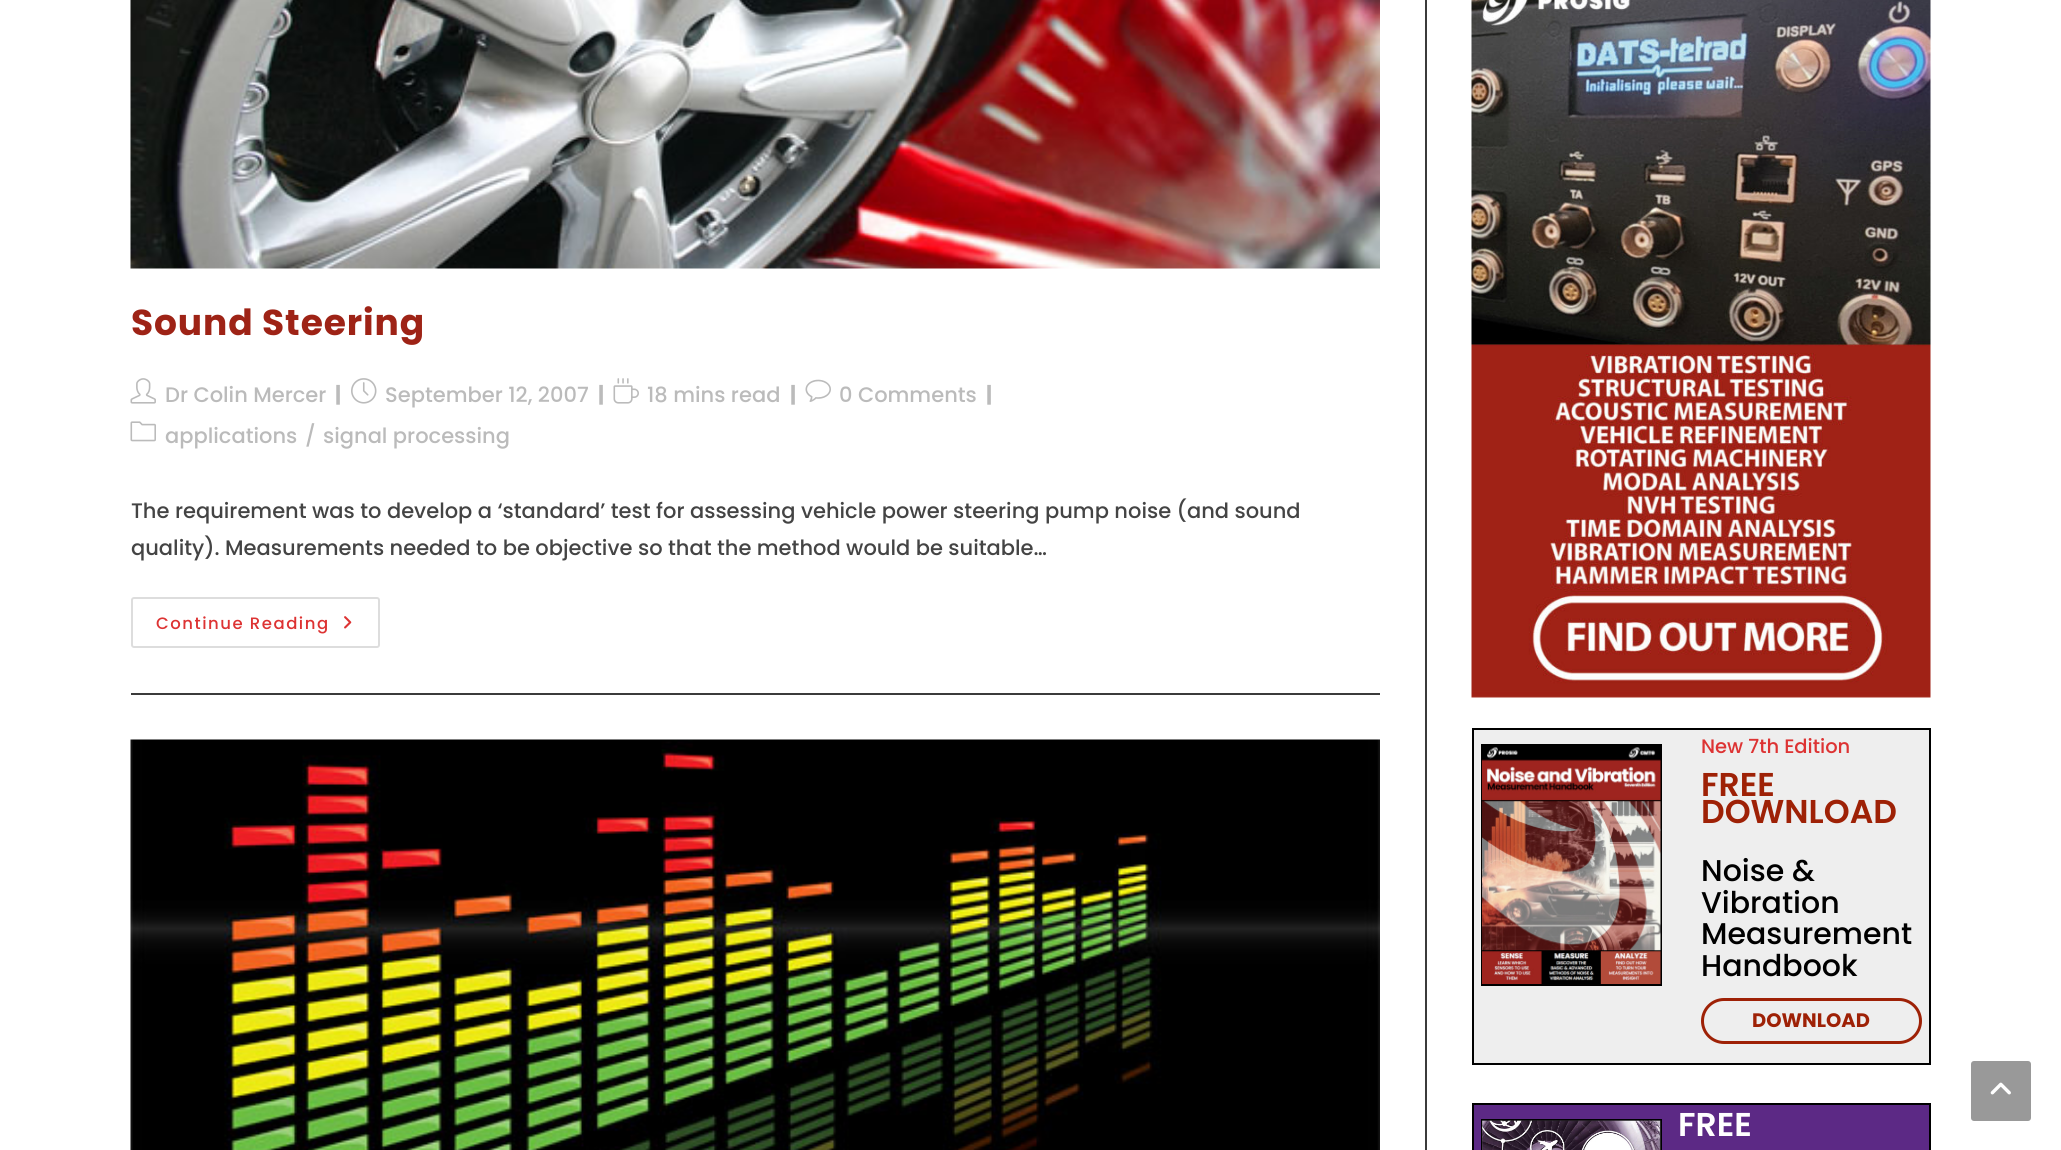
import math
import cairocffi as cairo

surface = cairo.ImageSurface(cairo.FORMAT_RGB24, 2061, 1150)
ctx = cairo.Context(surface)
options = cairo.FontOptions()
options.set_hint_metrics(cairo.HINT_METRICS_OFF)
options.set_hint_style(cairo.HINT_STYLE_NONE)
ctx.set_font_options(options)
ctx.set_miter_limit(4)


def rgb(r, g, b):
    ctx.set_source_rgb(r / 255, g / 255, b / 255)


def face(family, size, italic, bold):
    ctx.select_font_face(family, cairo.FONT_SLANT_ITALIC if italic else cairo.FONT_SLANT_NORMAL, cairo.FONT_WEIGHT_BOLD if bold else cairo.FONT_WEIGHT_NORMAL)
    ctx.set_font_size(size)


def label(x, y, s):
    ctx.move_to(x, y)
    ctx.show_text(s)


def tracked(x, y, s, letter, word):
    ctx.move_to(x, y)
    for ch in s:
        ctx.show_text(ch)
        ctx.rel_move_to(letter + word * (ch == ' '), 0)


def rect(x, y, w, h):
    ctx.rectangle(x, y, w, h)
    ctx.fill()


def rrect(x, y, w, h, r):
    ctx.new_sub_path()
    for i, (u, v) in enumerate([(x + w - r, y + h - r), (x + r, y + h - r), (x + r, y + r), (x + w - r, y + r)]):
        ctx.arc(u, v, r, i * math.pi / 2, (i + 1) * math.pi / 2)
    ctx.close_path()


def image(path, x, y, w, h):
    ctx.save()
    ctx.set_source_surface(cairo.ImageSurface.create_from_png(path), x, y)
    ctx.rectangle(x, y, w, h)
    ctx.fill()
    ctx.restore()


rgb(255, 255, 255)
ctx.paint()
rgb(59, 59, 59)
rect(1425, 0, 2, 1150)
rect(131, 693, 1249, 2)
image('image0.png', 130, 0, 1250, 269)
face('Poppins', 36, 0, 1)
rgb(158, 35, 22)
tracked(131, 335, 'Sound Steering', 0.9, 0)
image('image1.png', 130, 378, 26, 26)
face('Poppins Medium', 21, 0, 0)
rgb(187, 187, 187)
label(165, 402, 'Dr Colin Mercer')
face('Poppins', 21, 0, 1)
label(335, 402, '|')
image('image2.png', 351, 378, 26, 26)
face('Poppins Medium', 21, 0, 0)
label(385, 402, 'September 12, 2007')
face('Poppins', 21, 0, 1)
label(598, 402, '|')
image('image3.png', 613, 378, 26, 26)
face('Poppins Medium', 21, 0, 0)
label(647, 402, '18 mins read')
face('Poppins', 21, 0, 1)
label(790, 402, '|')
image('image4.png', 805, 379, 26, 23)
face('Poppins Medium', 21, 0, 0)
label(839, 402, '0 Comments')
face('Poppins', 21, 0, 1)
label(986, 402, '|')
image('image5.png', 130, 421, 26, 21)
face('Poppins Medium', 21, 0, 0)
label(165, 443, 'applications')
label(305, 443, '/')
label(323, 443, 'signal processing')
rgb(68, 68, 68)
label(131, 518, 'The requirement was to develop a ‘standard’ test for assessing vehicle power steering pump noise (and sound')
label(131, 555, 'quality). Measurements needed to be objective so that the method would be suitable…')
rrect(132, 598, 247, 49, 2)
rgb(221, 221, 221)
ctx.stroke()
face('Poppins Medium', 16.5, 0, 0)
rgb(221, 51, 51)
tracked(156, 629, 'Continue Reading', 1.5, 0)
image('image6.png', 344, 616, 8, 13)
image('image7.png', 130, 739, 1250, 411)
image('image8.png', 1471, 0, 460, 698)
rgb(238, 238, 238)
ctx.rectangle(1473, 729, 457, 335)
ctx.fill_preserve()
rgb(0, 0, 0)
ctx.stroke()
ctx.rectangle(1482, 745, 179, 240)
ctx.stroke()
image('image9.png', 1482, 746, 179, 238)
face('Poppins Medium', 19.5, 0, 0)
rgb(221, 51, 51)
label(1701, 753, 'New 7th Edition')
face('Poppins SemiBold', 33, 0, 0)
rgb(158, 33, 6)
label(1701, 796, 'FREE')
label(1701, 823, 'DOWNLOAD')
face('Poppins Medium', 30, 0, 0)
rgb(0, 0, 0)
label(1701, 881, 'Noise &')
label(1701, 913, 'Vibration')
label(1701, 944, 'Measurement')
label(1701, 976, 'Handbook')
rrect(1702.5, 999.5, 218, 43, 21.5)
rgb(158, 33, 6)
ctx.set_line_width(3)
ctx.stroke()
face('Poppins', 19.5, 0, 1)
label(1752, 1027, 'DOWNLOAD')
rgb(92, 41, 133)
ctx.rectangle(1473, 1104, 457, 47)
ctx.fill_preserve()
rgb(0, 0, 0)
ctx.set_line_width(2)
ctx.stroke()
ctx.rectangle(1482, 1120, 179, 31)
ctx.stroke()
image('image10.png', 1482, 1120, 179, 30)
face('Poppins SemiBold', 33, 0, 0)
rgb(255, 255, 255)
label(1678, 1136, 'FREE')
rgb(153, 153, 153)
rrect(1971, 1061, 60, 60, 3)
ctx.fill()
image('image11.png', 1990, 1082, 21, 13)
surface.write_to_png('render.png')
